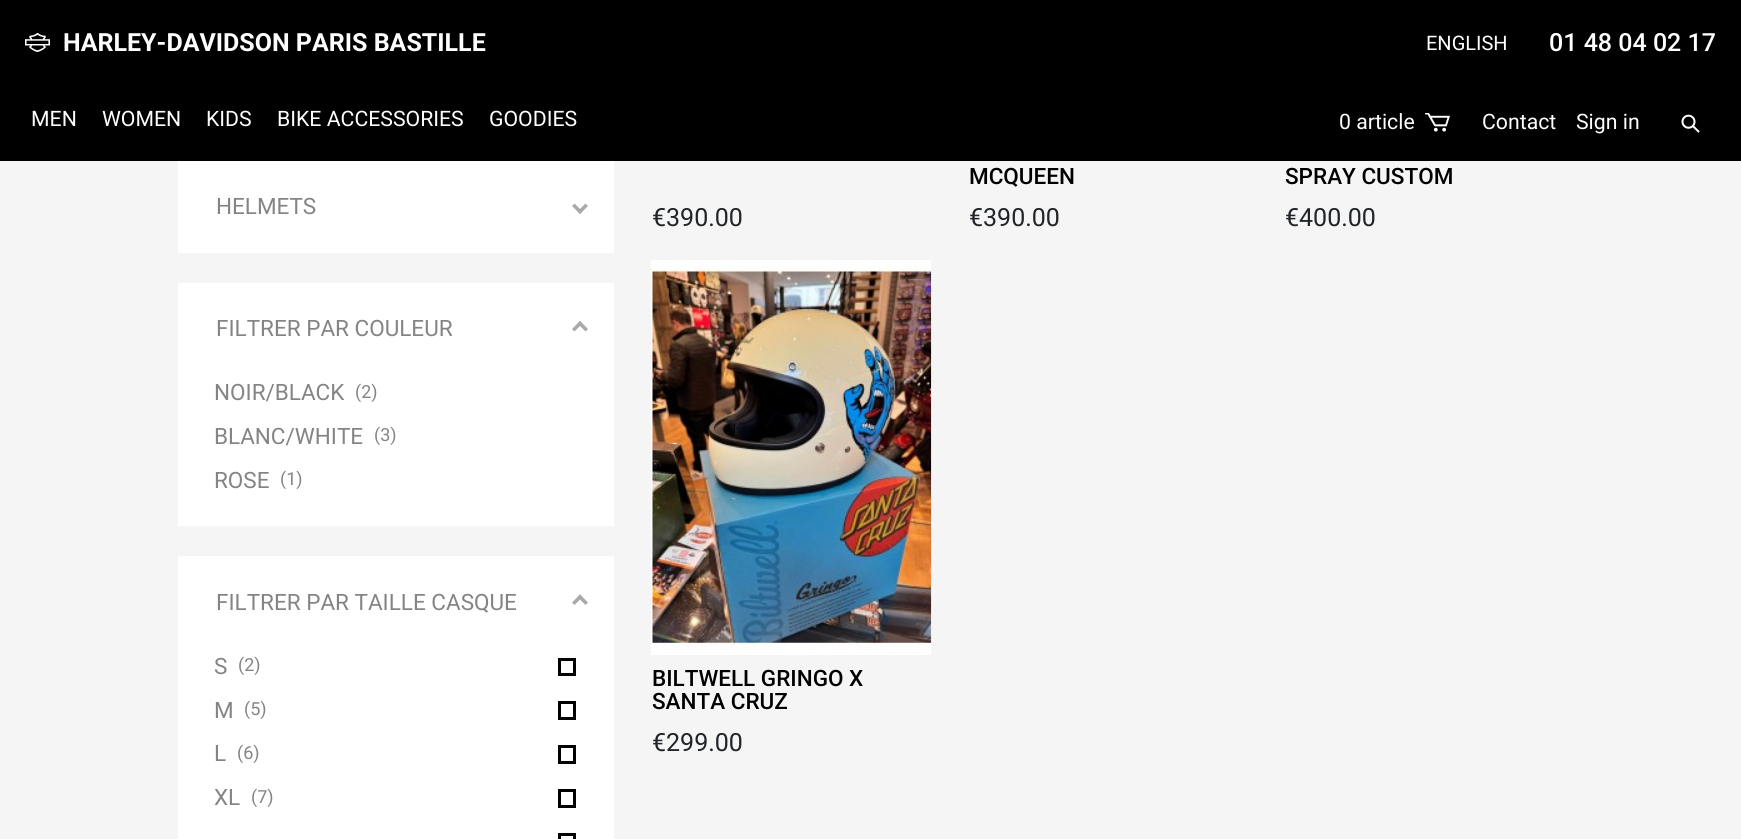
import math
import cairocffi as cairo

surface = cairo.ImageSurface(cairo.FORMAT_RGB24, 1741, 839)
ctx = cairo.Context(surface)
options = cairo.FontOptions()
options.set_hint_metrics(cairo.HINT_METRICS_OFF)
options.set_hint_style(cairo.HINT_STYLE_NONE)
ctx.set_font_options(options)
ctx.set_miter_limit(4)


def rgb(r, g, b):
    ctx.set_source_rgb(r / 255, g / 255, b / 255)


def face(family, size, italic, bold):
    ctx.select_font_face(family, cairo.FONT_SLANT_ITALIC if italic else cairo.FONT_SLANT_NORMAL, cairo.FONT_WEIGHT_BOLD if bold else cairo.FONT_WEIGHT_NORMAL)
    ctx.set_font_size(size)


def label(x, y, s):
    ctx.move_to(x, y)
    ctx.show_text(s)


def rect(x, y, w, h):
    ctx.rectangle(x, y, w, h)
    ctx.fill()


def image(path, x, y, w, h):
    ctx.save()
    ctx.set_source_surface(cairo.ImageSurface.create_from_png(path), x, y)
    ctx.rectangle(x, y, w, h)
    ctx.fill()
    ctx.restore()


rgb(245, 245, 245)
ctx.paint()
rgb(0, 0, 0)
rect(0, 0, 1741, 161)
image('image0.png', 25, 33, 25, 19)
face('Roboto', 25, 0, 1)
rgb(255, 255, 255)
label(63, 51, 'HARLEY-DAVIDSON PARIS BASTILLE')
face('Roboto', 20, 0, 0)
label(1426, 50, 'ENGLISH')
face('Roboto Medium', 25, 0, 0)
label(1549, 51, '01 48 04 02 17')
face('Roboto', 21.25, 0, 0)
label(31, 126, 'MEN')
label(102, 126, 'WOMEN')
label(206, 126, 'KIDS')
label(277, 126, 'BIKE ACCESSORIES')
label(489, 126, 'GOODIES')
label(1339, 129, '0 article')
image('image1.png', 1425, 113, 25, 19)
label(1482, 129, 'Contact')
label(1576, 129, 'Sign in')
image('image2.png', 1681, 114, 19, 19)
rect(178, 161, 436, 92)
face('Roboto', 22.5, 0, 0)
rgb(132, 132, 133)
label(216, 214, 'HELMETS')
rgb(168, 169, 171)
ctx.new_path()
ctx.move_to(585.5, 203.5)
ctx.line_to(588, 206)
ctx.line_to(580, 214)
ctx.line_to(577.5, 211.5)
ctx.close_path()
ctx.fill()
ctx.new_path()
ctx.move_to(574.5, 203.5)
ctx.line_to(582.5, 211.5)
ctx.line_to(580, 214)
ctx.line_to(572, 206)
ctx.close_path()
ctx.fill()
rgb(255, 255, 255)
rect(178, 283, 436, 243)
rgb(132, 132, 133)
label(216, 336, 'FILTRER PAR COULEUR')
rgb(168, 169, 171)
ctx.new_path()
ctx.move_to(574.5, 331.5)
ctx.line_to(572, 329)
ctx.line_to(580, 321)
ctx.line_to(582.5, 323.5)
ctx.close_path()
ctx.fill()
ctx.new_path()
ctx.move_to(585.5, 331.5)
ctx.line_to(577.5, 323.5)
ctx.line_to(580, 321)
ctx.line_to(588, 329)
ctx.close_path()
ctx.fill()
rgb(132, 132, 133)
label(214, 400, 'NOIR/BLACK')
face('Roboto', 18, 0, 0)
label(355, 398, '(2)')
face('Roboto', 22.5, 0, 0)
label(214, 444, 'BLANC/WHITE')
face('Roboto', 18, 0, 0)
label(374, 441, '(3)')
face('Roboto', 22.5, 0, 0)
label(214, 488, 'ROSE')
face('Roboto', 18, 0, 0)
label(280, 485, '(1)')
rgb(255, 255, 255)
rect(178, 556, 436, 283)
face('Roboto', 22.5, 0, 0)
rgb(132, 132, 133)
label(216, 610, 'FILTRER PAR TAILLE CASQUE')
rgb(168, 169, 171)
ctx.new_path()
ctx.move_to(574.5, 605)
ctx.line_to(572, 602.5)
ctx.line_to(580, 594.5)
ctx.line_to(582.5, 597)
ctx.close_path()
ctx.fill()
ctx.new_path()
ctx.move_to(585.5, 605)
ctx.line_to(577.5, 597)
ctx.line_to(580, 594.5)
ctx.line_to(588, 602.5)
ctx.close_path()
ctx.fill()
rgb(132, 132, 133)
label(214, 674, 'S')
face('Roboto', 18, 0, 0)
label(238, 671, '(2)')
ctx.rectangle(559.5, 659.5, 15, 15)
rgb(0, 0, 0)
ctx.set_line_width(3)
ctx.stroke()
face('Roboto', 22.5, 0, 0)
rgb(132, 132, 133)
label(214, 718, 'M')
face('Roboto', 18, 0, 0)
label(244, 715, '(5)')
ctx.rectangle(559.5, 702.5, 15, 16)
rgb(0, 0, 0)
ctx.stroke()
face('Roboto', 22.5, 0, 0)
rgb(132, 132, 133)
label(214, 761, 'L')
face('Roboto', 18, 0, 0)
label(237, 759, '(6)')
ctx.rectangle(559.5, 746.5, 15, 16)
rgb(0, 0, 0)
ctx.stroke()
face('Roboto', 22.5, 0, 0)
rgb(132, 132, 133)
label(214, 805, 'XL')
face('Roboto', 18, 0, 0)
label(251, 803, '(7)')
ctx.rectangle(559.5, 790.5, 15, 16)
rgb(0, 0, 0)
ctx.stroke()
ctx.rectangle(559.5, 834.5, 15, 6)
ctx.stroke()
face('Roboto', 25, 0, 0)
rgb(33, 37, 41)
label(652, 226, '€390.00')
face('Roboto Medium', 22.5, 0, 0)
rgb(0, 0, 0)
label(969, 184, 'MCQUEEN')
face('Roboto', 25, 0, 0)
rgb(33, 37, 41)
label(969, 226, '€390.00')
face('Roboto Medium', 22.5, 0, 0)
rgb(0, 0, 0)
label(1285, 184, 'SPRAY CUSTOM')
face('Roboto', 25, 0, 0)
rgb(33, 37, 41)
label(1285, 226, '€400.00')
rgb(255, 255, 255)
rect(651, 260, 280, 395)
image('image3.png', 652, 261, 280, 394)
face('Roboto Medium', 22.5, 0, 0)
rgb(0, 0, 0)
label(652, 686, 'BILTWELL GRINGO X')
label(652, 709, 'SANTA CRUZ')
face('Roboto', 25, 0, 0)
rgb(33, 37, 41)
label(652, 751, '€299.00')
surface.write_to_png('render.png')
